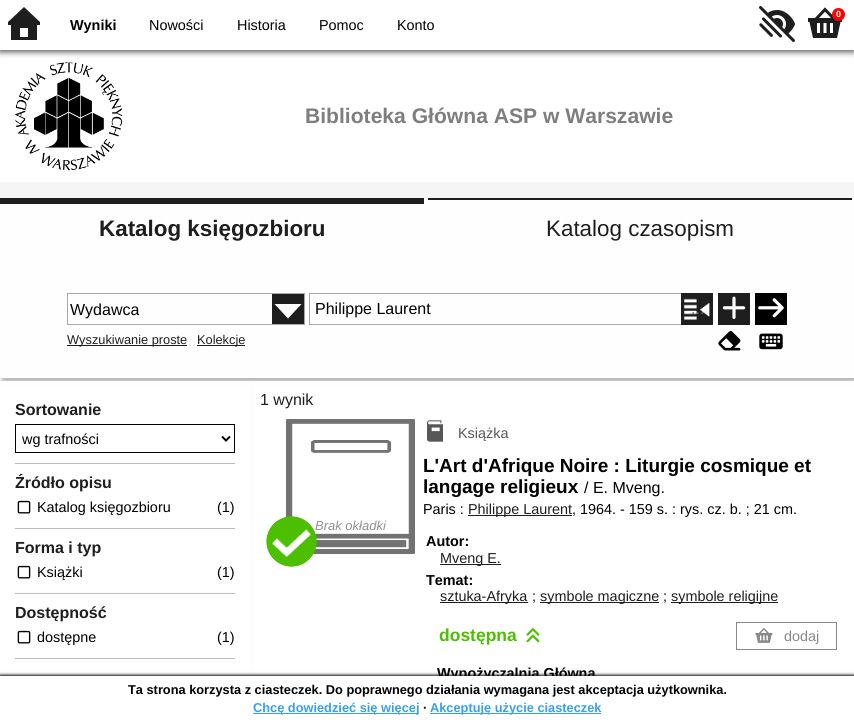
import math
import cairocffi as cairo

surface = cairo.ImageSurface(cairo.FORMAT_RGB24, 854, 725)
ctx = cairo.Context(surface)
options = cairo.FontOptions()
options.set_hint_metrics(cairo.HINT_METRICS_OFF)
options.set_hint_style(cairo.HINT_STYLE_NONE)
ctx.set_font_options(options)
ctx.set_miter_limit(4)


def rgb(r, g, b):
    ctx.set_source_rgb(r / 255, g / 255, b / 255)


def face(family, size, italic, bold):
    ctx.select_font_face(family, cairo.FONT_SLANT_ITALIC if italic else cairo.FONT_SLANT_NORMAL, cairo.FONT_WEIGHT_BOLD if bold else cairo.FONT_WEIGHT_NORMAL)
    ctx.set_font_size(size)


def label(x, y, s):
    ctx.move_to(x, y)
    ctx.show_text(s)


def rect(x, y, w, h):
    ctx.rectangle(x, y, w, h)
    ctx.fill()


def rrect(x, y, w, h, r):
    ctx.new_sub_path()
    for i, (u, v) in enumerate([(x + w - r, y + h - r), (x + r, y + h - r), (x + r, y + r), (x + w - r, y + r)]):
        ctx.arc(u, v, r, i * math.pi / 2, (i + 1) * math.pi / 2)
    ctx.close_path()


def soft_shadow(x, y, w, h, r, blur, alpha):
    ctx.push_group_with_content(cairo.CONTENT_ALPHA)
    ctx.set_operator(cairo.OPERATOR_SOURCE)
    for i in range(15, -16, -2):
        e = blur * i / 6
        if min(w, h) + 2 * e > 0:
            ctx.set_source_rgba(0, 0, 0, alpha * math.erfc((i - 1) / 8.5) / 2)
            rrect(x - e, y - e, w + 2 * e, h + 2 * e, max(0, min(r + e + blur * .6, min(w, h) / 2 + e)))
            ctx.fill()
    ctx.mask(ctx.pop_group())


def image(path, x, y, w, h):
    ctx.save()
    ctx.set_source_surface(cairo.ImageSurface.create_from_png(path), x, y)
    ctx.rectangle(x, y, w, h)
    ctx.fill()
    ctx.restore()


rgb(245, 245, 245)
ctx.paint()
rgb(255, 255, 255)
rect(0, 50, 854, 132)
rgb(0, 0, 0)
soft_shadow(0, 2, 854, 50, 0, 3, 0.65)
rgb(255, 255, 255)
rect(0, 0, 854, 50)
image('image0.png', 759, 6, 36, 36)
image('image1.png', 808, 7, 34, 31)
rgb(255, 0, 0)
ctx.arc(838.5, 14.5, 6.5, 0, 2 * math.pi)
ctx.fill()
face('Liberation Sans', 9, 0, 1)
rgb(255, 255, 255)
label(836, 17, '0')
image('image2.png', 8, 7, 32, 33)
face('Liberation Sans', 14.4, 0, 1)
rgb(0, 0, 0)
label(70, 30, 'Wyniki')
face('Liberation Sans', 14.4, 0, 0)
label(149, 30, 'Nowości')
label(237, 30, 'Historia')
label(319, 30, 'Pomoc')
label(397, 30, 'Konto')
image('image3.png', 15, 62, 108, 109)
face('Liberation Sans', 21.1, 0, 1)
rgb(126, 126, 126)
label(305, 123, 'Biblioteka Główna ASP w Warszawie')
rgb(0, 0, 0)
soft_shadow(2, 202, 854, 180, 0, 2, 0.25)
rgb(254, 254, 254)
rect(0, 198, 854, 180)
rgb(30, 30, 30)
rect(0, 198, 424, 6)
face('Liberation Sans', 22.4, 0, 1)
label(99, 236, 'Katalog księgozbioru')
rect(428, 198, 424, 2)
face('Liberation Sans', 22.4, 0, 0)
label(546, 236, 'Katalog czasopism')
ctx.rectangle(67.5, 293.5, 237, 31)
rgb(167, 167, 167)
ctx.set_line_width(1)
ctx.stroke()
face('Liberation Sans', 16, 0, 0)
rgb(0, 0, 0)
label(70, 315, 'Wydawca')
rgb(30, 30, 30)
rect(272, 294, 32, 30)
rgb(255, 255, 255)
ctx.new_path()
ctx.move_to(301.5, 304)
ctx.line_to(288, 318.5)
ctx.line_to(274.5, 304)
ctx.close_path()
ctx.fill()
ctx.rectangle(309.5, 293.5, 403, 31)
rgb(167, 167, 167)
ctx.stroke()
rgb(0, 0, 0)
label(315, 314, 'Philippe Laurent')
rgb(30, 30, 30)
rect(681, 293, 32, 32)
image('image4.png', 683, 298, 30, 27)
rgb(105, 105, 105)
label(691, 314, '...')
rgb(30, 30, 30)
rect(718, 293, 32, 32)
image('image5.png', 722, 296, 24, 23)
rgb(0, 0, 0)
rect(755, 293, 32, 32)
image('image6.png', 758, 298, 26, 20)
rgb(30, 30, 30)
rect(67, 345, 120, 1)
face('Liberation Sans', 12.8, 0, 0)
label(67, 344, 'Wyszukiwanie proste')
rect(197, 345, 48, 1)
label(197, 344, 'Kolekcje')
image('image7.png', 718, 331, 23, 20)
image('image8.png', 759, 333, 24, 17)
ctx.save()
ctx.rectangle(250, 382, 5, 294)
ctx.clip()
rgb(0, 0, 0)
soft_shadow(2, 385, 250, 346, 0, 2, 0.25)
ctx.restore()
ctx.set_source_rgba(1, 1, 1, 0.95)
rect(0, 381, 250, 295)
rgb(187, 187, 187)
rect(15, 463, 220, 1)
face('Liberation Sans', 16, 0, 1)
rgb(30, 30, 30)
label(15, 415, 'Sortowanie')
ctx.rectangle(15.5, 424.5, 219, 28)
rgb(0, 0, 0)
ctx.stroke()
ctx.new_path()
ctx.move_to(222, 436.5)
ctx.line_to(226, 440.5)
ctx.line_to(230, 436.5)
ctx.set_line_width(2)
ctx.stroke()
face('Liberation Sans', 14.4, 0, 0)
label(22, 444, 'wg trafności')
rgb(187, 187, 187)
rect(15, 528, 220, 1)
face('Liberation Sans', 16, 0, 1)
rgb(30, 30, 30)
label(15, 488, 'Źródło opisu')
image('image9.png', 17, 500, 14, 14)
face('Liberation Sans', 14.4, 0, 0)
rgb(0, 0, 0)
label(37, 512, 'Katalog księgozbioru')
label(217, 512, '(1)')
rgb(187, 187, 187)
rect(15, 593, 220, 1)
face('Liberation Sans', 16, 0, 1)
rgb(30, 30, 30)
label(15, 553, 'Forma i typ')
image('image9.png', 17, 565, 14, 14)
face('Liberation Sans', 14.4, 0, 0)
rgb(0, 0, 0)
label(37, 577, 'Książki')
label(217, 577, '(1)')
rgb(187, 187, 187)
rect(15, 658, 220, 1)
face('Liberation Sans', 16, 0, 1)
rgb(30, 30, 30)
label(15, 618, 'Dostępność')
image('image9.png', 17, 630, 14, 14)
face('Liberation Sans', 14.4, 0, 0)
rgb(0, 0, 0)
label(37, 642, 'dostępne')
label(217, 642, '(1)')
ctx.set_source_rgba(1, 1, 1, 0.95)
rect(250, 381, 604, 295)
face('Liberation Sans', 16, 0, 0)
rgb(30, 30, 30)
label(260, 405, '1 wynik')
image('image11.png', 286, 419, 129, 135)
face('Liberation Sans', 13, 1, 0)
rgb(146, 146, 145)
label(315, 530, 'Brak okładki')
image('image10.png', 266, 516, 51, 51)
image('image12.png', 427, 420, 16, 22)
face('Liberation Sans', 14.4, 0, 0)
rgb(87, 87, 86)
label(458, 438, 'Książka')
face('Liberation Sans', 19, 0, 1)
rgb(0, 0, 0)
label(423, 472, 'L\'Art d\'Afrique Noire : Liturgie cosmique et')
label(423, 493, 'langage religieux')
face('Liberation Sans', 16, 0, 0)
label(584, 493, '/ E. Mveng.')
face('Liberation Sans', 14.4, 0, 0)
label(423, 514, 'Paris :')
rgb(30, 30, 30)
rect(468, 515, 104, 1)
label(468, 514, 'Philippe Laurent')
rgb(0, 0, 0)
label(572, 514, ', 1964. - 159 s. : rys. cz. b. ; 21 cm.')
face('Liberation Sans', 14.4, 0, 1)
label(426, 546, 'Autor:')
rgb(30, 30, 30)
rect(440, 564, 61, 1)
face('Liberation Sans', 14.4, 0, 0)
label(440, 563, 'Mveng E.')
face('Liberation Sans', 14.4, 0, 1)
rgb(0, 0, 0)
label(426, 585, 'Temat:')
rgb(30, 30, 30)
rect(440, 602, 88, 1)
face('Liberation Sans', 14.4, 0, 0)
label(440, 601, 'sztuka-Afryka')
rgb(0, 0, 0)
label(532, 601, ';')
rgb(30, 30, 30)
rect(540, 602, 119, 1)
label(540, 601, 'symbole magiczne')
rgb(0, 0, 0)
label(663, 601, ';')
rgb(30, 30, 30)
rect(671, 602, 107, 1)
label(671, 601, 'symbole religijne')
face('Liberation Sans', 17.5, 0, 1)
rgb(76, 191, 0)
label(439, 641, 'dostępna')
image('image13.png', 526, 628, 14, 15)
ctx.rectangle(736.5, 622.5, 100, 27)
rgb(136, 137, 137)
ctx.set_line_width(1)
ctx.stroke()
image('image14.png', 755, 627, 18, 16)
face('Liberation Sans', 14.4, 0, 0)
label(784, 641, 'dodaj')
face('Liberation Sans', 14.4, 0, 1)
rgb(0, 0, 0)
label(437, 678, 'Wypożyczalnia Główna')
rgb(0, 0, 0)
soft_shadow(0, 675, 854, 49, 0, 1.5, 1)
rgb(255, 255, 255)
rect(0, 676, 854, 49)
face('Liberation Sans', 12.8, 0, 1)
rgb(0, 0, 0)
label(128, 694, 'Ta strona korzysta z ciasteczek. Do poprawnego działania wymagana jest akceptacja użytkownika.')
rgb(54, 160, 236)
rect(253, 713, 166, 1)
label(253, 712, 'Chcę dowiedzieć się więcej')
rgb(0, 0, 0)
label(423, 712, '∙')
rgb(54, 160, 236)
rect(430, 713, 171, 1)
label(430, 712, 'Akceptuję użycie ciasteczek')
surface.write_to_png('render.png')
